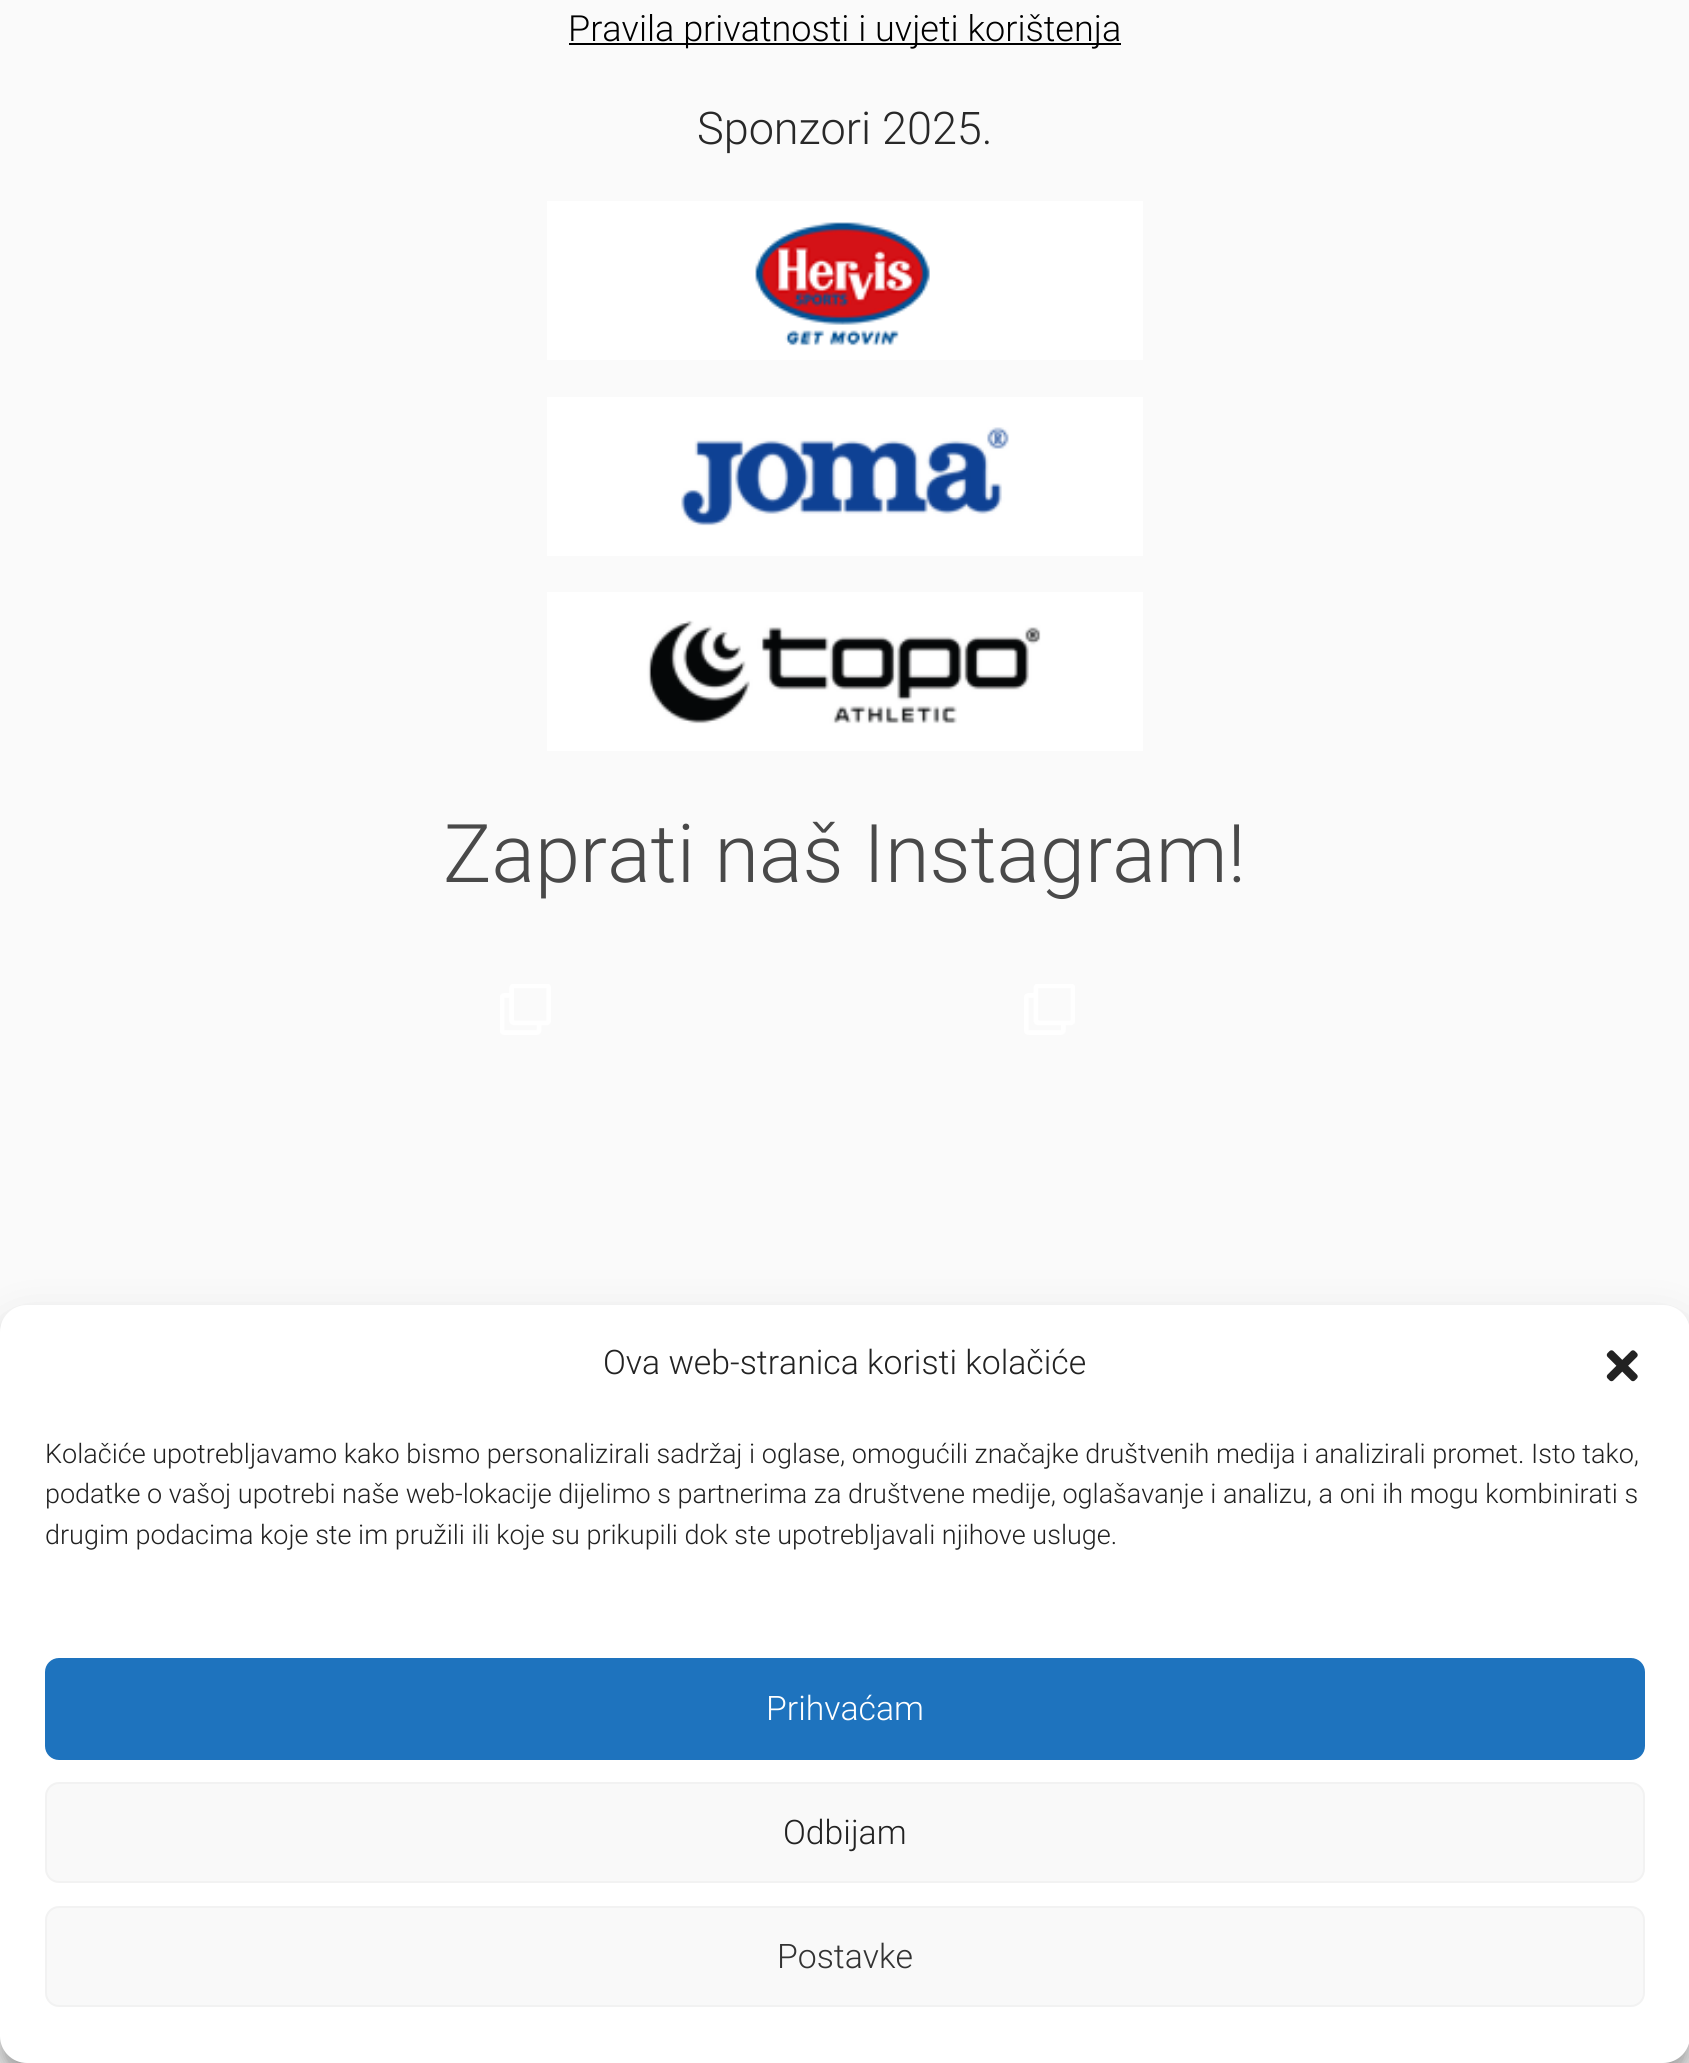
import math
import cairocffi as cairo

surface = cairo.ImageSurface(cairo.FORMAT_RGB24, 1689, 2063)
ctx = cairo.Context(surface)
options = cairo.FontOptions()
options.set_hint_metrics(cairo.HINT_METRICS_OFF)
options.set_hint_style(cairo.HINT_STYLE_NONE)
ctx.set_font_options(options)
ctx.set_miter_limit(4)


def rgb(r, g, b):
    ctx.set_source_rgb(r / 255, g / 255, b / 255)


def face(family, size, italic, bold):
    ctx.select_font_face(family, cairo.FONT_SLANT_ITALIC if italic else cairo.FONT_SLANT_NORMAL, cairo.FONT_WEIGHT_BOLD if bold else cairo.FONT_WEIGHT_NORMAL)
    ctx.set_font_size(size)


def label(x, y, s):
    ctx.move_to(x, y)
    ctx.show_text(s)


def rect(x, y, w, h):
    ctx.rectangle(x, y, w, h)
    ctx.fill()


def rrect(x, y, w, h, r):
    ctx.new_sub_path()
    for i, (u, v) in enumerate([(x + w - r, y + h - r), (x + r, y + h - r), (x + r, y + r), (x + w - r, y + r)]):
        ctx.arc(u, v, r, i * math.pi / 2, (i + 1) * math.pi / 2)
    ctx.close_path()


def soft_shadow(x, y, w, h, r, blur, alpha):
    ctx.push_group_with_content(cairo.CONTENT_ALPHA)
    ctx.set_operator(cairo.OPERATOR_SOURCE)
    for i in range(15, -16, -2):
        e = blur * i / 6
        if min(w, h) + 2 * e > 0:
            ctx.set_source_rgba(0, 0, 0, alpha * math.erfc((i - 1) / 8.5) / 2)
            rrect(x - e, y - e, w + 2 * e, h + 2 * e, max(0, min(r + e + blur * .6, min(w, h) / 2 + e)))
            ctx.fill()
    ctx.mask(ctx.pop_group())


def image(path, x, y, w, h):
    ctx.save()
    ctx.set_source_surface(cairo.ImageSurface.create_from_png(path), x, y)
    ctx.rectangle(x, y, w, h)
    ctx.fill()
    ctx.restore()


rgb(250, 250, 250)
ctx.paint()
rgb(0, 0, 0)
rect(569, 43, 552, 2)
face('Roboto Light', 36, 0, 0)
label(568, 41, 'Pravila privatnosti i uvjeti korištenja')
face('Roboto Light', 45, 0, 0)
rgb(40, 40, 40)
label(697, 144, 'Sponzori 2025.')
image('image0.png', 547, 201, 596, 159)
image('image1.png', 547, 397, 596, 159)
image('image2.png', 547, 592, 596, 159)
face('Roboto Light', 81, 0, 0)
rgb(73, 73, 73)
label(443, 882, 'Zaprati naš Instagram!')
image('image3.png', 500, 984, 51, 51)
image('image4.png', 1024, 984, 51, 51)
rgb(0, 0, 0)
soft_shadow(0, 1319, 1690, 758, 27, 7, 0.23)
soft_shadow(0, 1328, 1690, 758, 27, 22.5, 0.19)
rgb(255, 255, 255)
rrect(0, 1305, 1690, 758, 27)
ctx.fill()
face('Roboto Light', 33.75, 0, 0)
rgb(34, 34, 34)
label(603, 1374, 'Ova web-stranica koristi kolačiće')
image('image5.png', 1606, 1350, 32, 32)
face('Roboto Light', 27, 0, 0)
label(45, 1463, 'Kolačiće upotrebljavamo kako bismo personalizirali sadržaj i oglase, omogućili značajke društvenih medija i analizirali promet. Isto tako,')
label(45, 1503, 'podatke o vašoj upotrebi naše web-lokacije dijelimo s partnerima za društvene medije, oglašavanje i analizu, a oni ih mogu kombinirati s')
label(45, 1544, 'drugim podacima koje ste im pružili ili koje su prikupili dok ste upotrebljavali njihove usluge.')
rgb(30, 115, 190)
rrect(46, 1659, 1598, 100, 13)
ctx.fill_preserve()
ctx.stroke()
face('Roboto Light', 33.75, 0, 0)
rgb(255, 255, 255)
label(766, 1720, 'Prihvaćam')
rgb(249, 249, 249)
rrect(46, 1783, 1598, 99, 13)
ctx.fill_preserve()
rgb(242, 242, 242)
ctx.stroke()
rgb(34, 34, 34)
label(783, 1844, 'Odbijam')
rgb(249, 249, 249)
rrect(46, 1907, 1598, 99, 13)
ctx.fill_preserve()
rgb(242, 242, 242)
ctx.stroke()
rgb(51, 51, 51)
label(777, 1968, 'Postavke')
surface.write_to_png('render.png')
